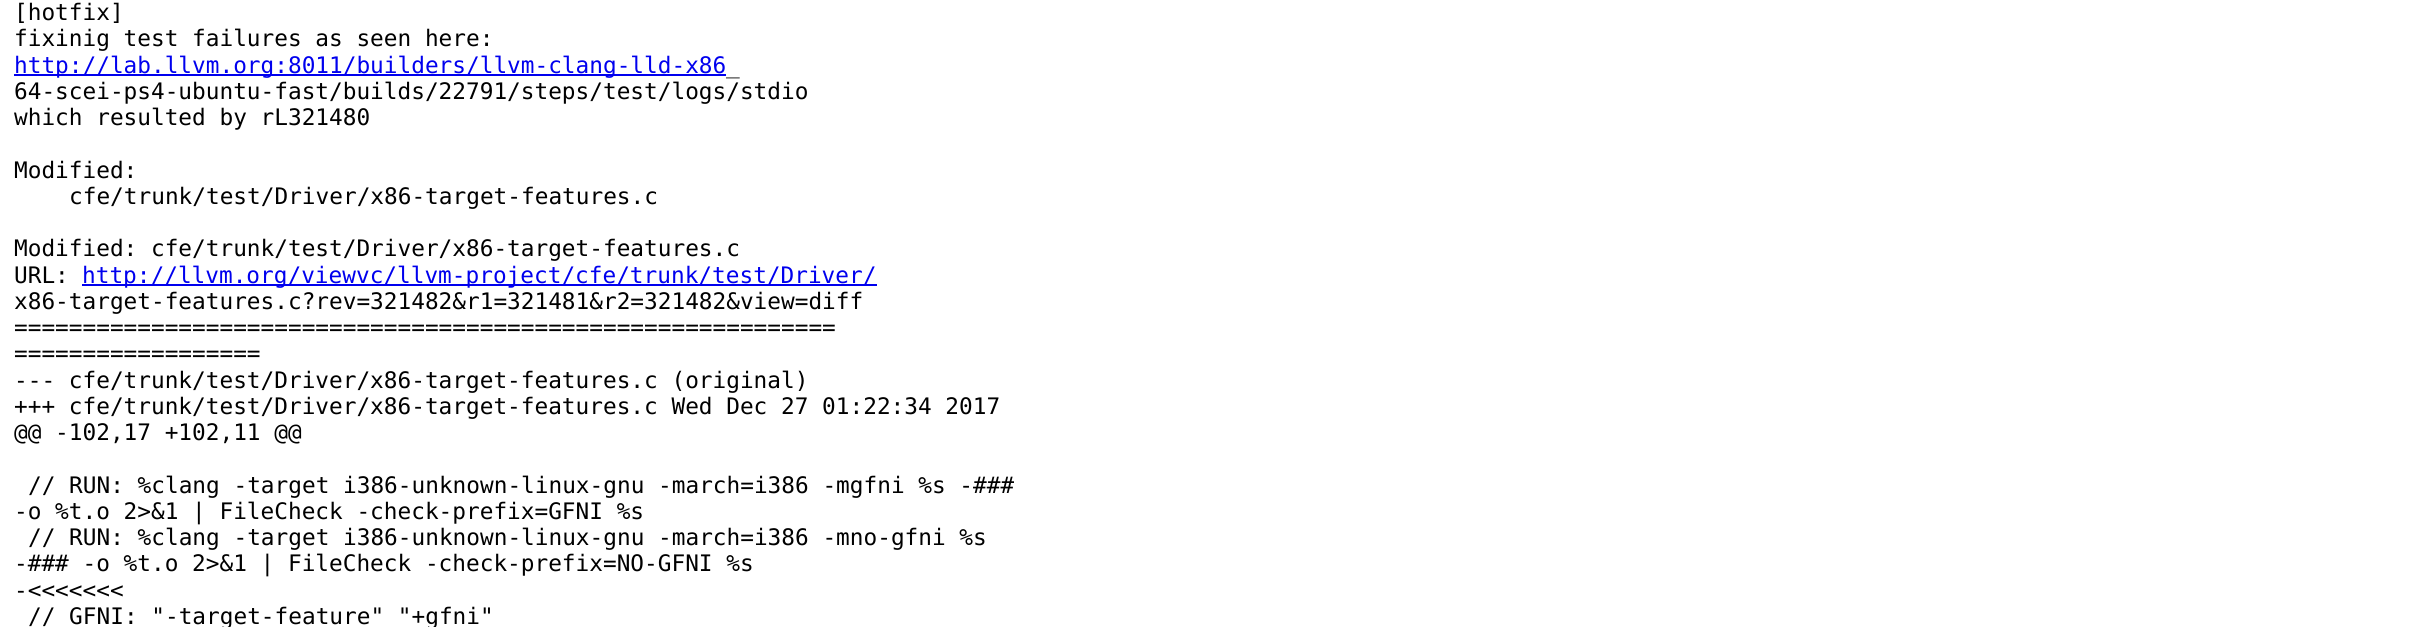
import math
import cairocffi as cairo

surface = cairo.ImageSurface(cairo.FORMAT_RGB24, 2414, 627)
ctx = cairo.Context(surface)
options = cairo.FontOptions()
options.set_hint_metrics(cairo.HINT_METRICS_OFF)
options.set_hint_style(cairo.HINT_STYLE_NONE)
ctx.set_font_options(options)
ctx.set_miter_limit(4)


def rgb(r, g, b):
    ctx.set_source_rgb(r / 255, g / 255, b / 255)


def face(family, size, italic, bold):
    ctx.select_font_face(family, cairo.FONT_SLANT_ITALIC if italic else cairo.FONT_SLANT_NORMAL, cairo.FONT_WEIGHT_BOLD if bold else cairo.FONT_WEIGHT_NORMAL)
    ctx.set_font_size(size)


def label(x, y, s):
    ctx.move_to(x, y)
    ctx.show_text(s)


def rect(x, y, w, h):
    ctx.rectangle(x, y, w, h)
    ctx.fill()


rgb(255, 255, 255)
ctx.paint()
face('DejaVu Sans Mono', 22.75, 0, 0)
rgb(0, 0, 0)
label(14, 20, '[hotfix]')
label(14, 46, 'fixinig test failures as seen here:')
rgb(0, 0, 238)
rect(14, 74, 712, 2)
label(14, 73, 'http://lab.llvm.org:8011/builders/llvm-clang-lld-x86')
rgb(0, 0, 0)
label(726, 73, '_')
label(14, 99, '64-scei-ps4-ubuntu-fast/builds/22791/steps/test/logs/stdio')
label(14, 125, 'which resulted by rL321480')
label(14, 178, 'Modified:')
label(69, 204, 'cfe/trunk/test/Driver/x86-target-features.c')
label(14, 256, 'Modified: cfe/trunk/test/Driver/x86-target-features.c')
label(14, 283, 'URL:')
rgb(0, 0, 238)
rect(82, 284, 795, 2)
label(82, 283, 'http://llvm.org/viewvc/llvm-project/cfe/trunk/test/Driver/')
rgb(0, 0, 0)
label(14, 309, 'x86-target-features.c?rev=321482&r1=321481&r2=321482&view=diff')
label(14, 335, '============================================================')
label(14, 361, '==================')
label(14, 388, '--- cfe/trunk/test/Driver/x86-target-features.c (original)')
label(14, 414, '+++ cfe/trunk/test/Driver/x86-target-features.c Wed Dec 27 01:22:34 2017')
label(14, 440, '@@ -102,17 +102,11 @@')
label(28, 493, '// RUN: %clang -target i386-unknown-linux-gnu -march=i386 -mgfni %s -###')
label(14, 519, '-o %t.o 2>&1 | FileCheck -check-prefix=GFNI %s')
label(28, 545, '// RUN: %clang -target i386-unknown-linux-gnu -march=i386 -mno-gfni %s')
label(14, 571, '-### -o %t.o 2>&1 | FileCheck -check-prefix=NO-GFNI %s')
label(14, 598, '-<<<<<<<')
label(28, 624, '// GFNI: "-target-feature" "+gfni"')
surface.write_to_png('render.png')
